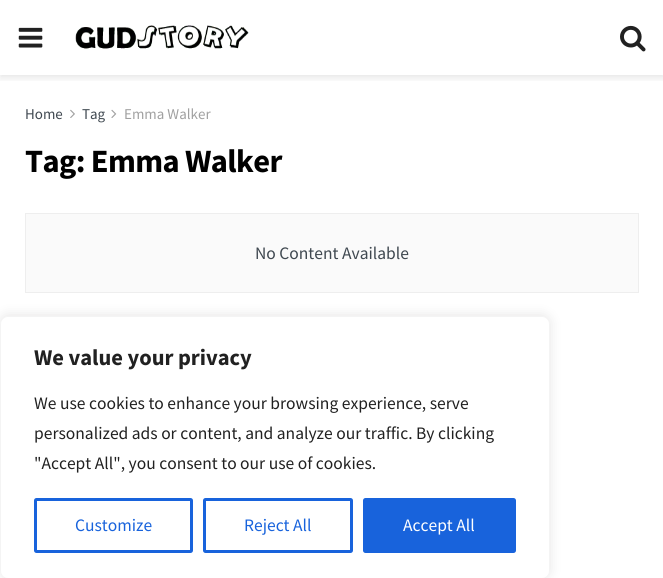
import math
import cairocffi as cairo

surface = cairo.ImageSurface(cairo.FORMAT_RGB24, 663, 578)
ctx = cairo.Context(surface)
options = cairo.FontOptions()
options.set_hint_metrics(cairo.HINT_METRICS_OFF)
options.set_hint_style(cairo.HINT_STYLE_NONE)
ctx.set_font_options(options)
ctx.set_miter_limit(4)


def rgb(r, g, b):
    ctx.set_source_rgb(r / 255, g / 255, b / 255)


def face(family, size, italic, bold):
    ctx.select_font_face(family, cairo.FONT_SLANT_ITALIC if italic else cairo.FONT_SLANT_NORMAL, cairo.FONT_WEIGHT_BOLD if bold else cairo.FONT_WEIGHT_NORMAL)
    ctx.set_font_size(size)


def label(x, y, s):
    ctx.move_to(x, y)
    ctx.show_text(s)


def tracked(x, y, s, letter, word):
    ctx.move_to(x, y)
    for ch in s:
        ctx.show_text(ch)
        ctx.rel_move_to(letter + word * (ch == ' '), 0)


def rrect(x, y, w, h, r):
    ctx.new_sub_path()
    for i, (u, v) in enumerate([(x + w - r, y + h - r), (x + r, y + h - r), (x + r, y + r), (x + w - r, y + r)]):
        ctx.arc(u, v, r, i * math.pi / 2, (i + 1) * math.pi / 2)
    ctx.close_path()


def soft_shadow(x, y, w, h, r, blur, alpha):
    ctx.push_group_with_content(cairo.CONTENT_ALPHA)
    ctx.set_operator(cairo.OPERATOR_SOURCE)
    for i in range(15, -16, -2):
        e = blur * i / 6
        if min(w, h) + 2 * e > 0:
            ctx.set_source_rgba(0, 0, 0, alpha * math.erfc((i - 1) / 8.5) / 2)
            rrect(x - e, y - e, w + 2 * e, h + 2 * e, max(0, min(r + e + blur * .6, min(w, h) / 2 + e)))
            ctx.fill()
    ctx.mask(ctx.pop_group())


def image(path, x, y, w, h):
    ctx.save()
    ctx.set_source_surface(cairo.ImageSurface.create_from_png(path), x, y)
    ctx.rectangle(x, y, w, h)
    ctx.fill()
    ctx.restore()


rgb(255, 255, 255)
ctx.paint()
ctx.save()
ctx.rectangle(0, 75, 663, 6)
ctx.clip()
rgb(0, 0, 0)
soft_shadow(0, 3, 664, 75, 0, 4, 0.1)
ctx.restore()
image('image0.png', 18, 27, 25, 21)
image('image1.png', 75, 25, 174, 24)
image('image2.png', 620, 25, 26, 27)
face('Source Sans Pro', 15, 0, 0)
rgb(63, 72, 80)
label(25, 119, 'Home')
image('image3.png', 70, 109, 5, 9)
label(82, 119, 'Tag')
image('image4.png', 111, 109, 6, 9)
rgb(160, 160, 160)
label(124, 119, 'Emma Walker')
face('Source Sans Pro', 32.5, 0, 1)
rgb(0, 0, 0)
tracked(25, 172, 'Tag: Emma Walker', -0.6, 0)
rgb(250, 250, 250)
ctx.rectangle(25.5, 213.5, 613, 79)
ctx.fill_preserve()
rgb(238, 238, 238)
ctx.set_line_width(1)
ctx.stroke()
face('Source Sans Pro', 17.5, 0, 0)
rgb(63, 72, 80)
label(255, 259, 'No Content Available')
rgb(172, 171, 171)
soft_shadow(0, 315, 550, 263, 8, 6, 0.3)
rgb(255, 255, 255)
rrect(0.5, 316.5, 549, 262, 7.5)
ctx.fill_preserve()
rgb(244, 244, 244)
ctx.stroke()
face('Source Sans Pro', 22.5, 0, 1)
rgb(33, 33, 33)
label(34, 365, 'We value your privacy')
face('Source Sans Pro', 17.5, 0, 0)
label(34, 409, 'We use cookies to enhance your browsing experience, serve')
label(34, 439, 'personalized ads or content, and analyze our traffic. By clicking')
label(34, 469, '"Accept All", you consent to our use of cookies.')
rrect(35.5, 499.5, 156, 52, 1)
rgb(24, 99, 220)
ctx.set_line_width(3)
ctx.stroke()
label(75, 531, 'Customize')
rrect(204.5, 499.5, 147, 52, 1)
ctx.stroke()
label(244, 531, 'Reject All')
rrect(364.5, 499.5, 150, 52, 1)
ctx.fill_preserve()
ctx.stroke()
rgb(255, 255, 255)
label(403, 531, 'Accept All')
surface.write_to_png('render.png')
